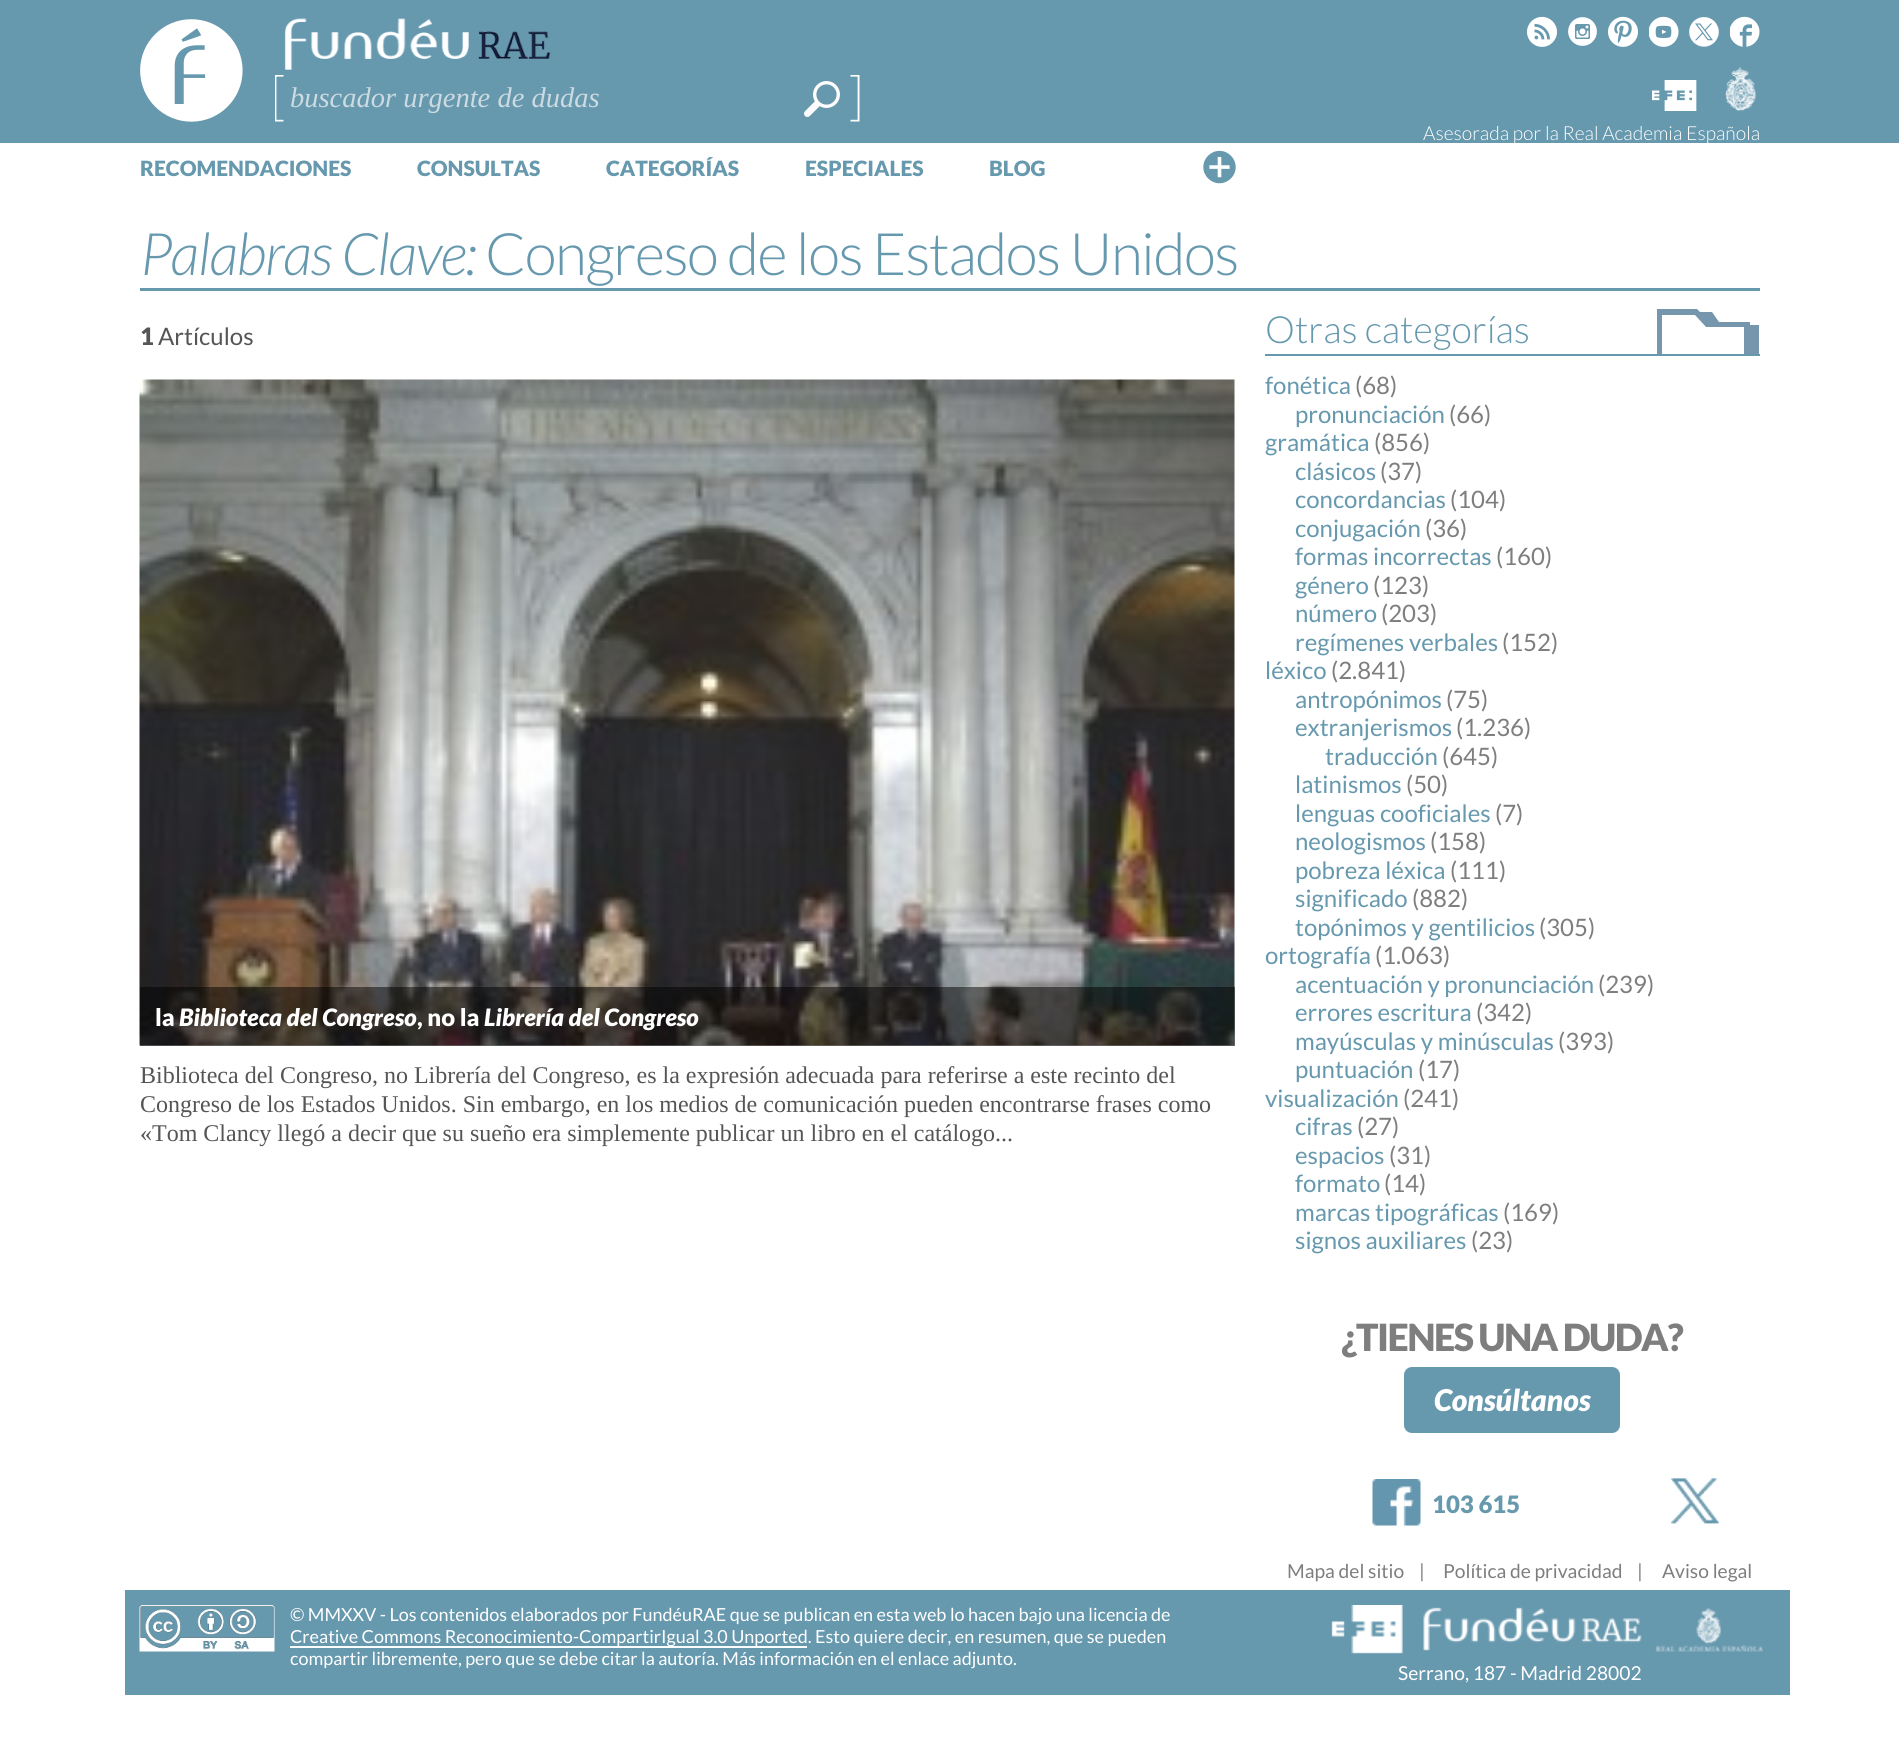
import math
import cairocffi as cairo

surface = cairo.ImageSurface(cairo.FORMAT_RGB24, 1899, 1747)
ctx = cairo.Context(surface)
options = cairo.FontOptions()
options.set_hint_metrics(cairo.HINT_METRICS_OFF)
options.set_hint_style(cairo.HINT_STYLE_NONE)
ctx.set_font_options(options)
ctx.set_miter_limit(4)


def rgb(r, g, b):
    ctx.set_source_rgb(r / 255, g / 255, b / 255)


def face(family, size, italic, bold):
    ctx.select_font_face(family, cairo.FONT_SLANT_ITALIC if italic else cairo.FONT_SLANT_NORMAL, cairo.FONT_WEIGHT_BOLD if bold else cairo.FONT_WEIGHT_NORMAL)
    ctx.set_font_size(size)


def label(x, y, s):
    ctx.move_to(x, y)
    ctx.show_text(s)


def tracked(x, y, s, letter, word):
    ctx.move_to(x, y)
    for ch in s:
        ctx.show_text(ch)
        ctx.rel_move_to(letter + word * (ch == ' '), 0)


def rect(x, y, w, h):
    ctx.rectangle(x, y, w, h)
    ctx.fill()


def rrect(x, y, w, h, r):
    ctx.new_sub_path()
    for i, (u, v) in enumerate([(x + w - r, y + h - r), (x + r, y + h - r), (x + r, y + r), (x + w - r, y + r)]):
        ctx.arc(u, v, r, i * math.pi / 2, (i + 1) * math.pi / 2)
    ctx.close_path()


def image(path, x, y, w, h):
    ctx.save()
    ctx.set_source_surface(cairo.ImageSurface.create_from_png(path), x, y)
    ctx.rectangle(x, y, w, h)
    ctx.fill()
    ctx.restore()


rgb(255, 255, 255)
ctx.paint()
rgb(102, 152, 174)
rect(0, 0, 1899, 143)
image('image0.png', 140, 19, 103, 103)
image('image1.png', 284, 18, 267, 52)
image('image2.png', 275, 75, 585, 47)
face('Tinos', 28.5, 1, 0)
rgb(204, 218, 225)
label(290, 107, 'buscador urgente de dudas')
image('image3.png', 804, 81, 36, 36)
image('image4.png', 1527, 16, 30, 31)
image('image5.png', 1568, 17, 29, 29)
image('image6.png', 1608, 16, 30, 31)
image('image7.png', 1649, 16, 30, 31)
image('image8.png', 1689, 17, 30, 30)
image('image9.png', 1730, 16, 30, 31)
image('image10.png', 1652, 80, 45, 31)
image('image11.png', 1725, 67, 32, 44)
face('Lato Light', 19.25, 0, 0)
rgb(255, 255, 255)
label(1423, 140, 'Asesorada por la Real Academia Española')
face('Lato Black', 21, 0, 0)
rgb(102, 152, 174)
label(140, 176, 'RECOMENDACIONES')
label(417, 176, 'CONSULTAS')
label(606, 176, 'CATEGORÍAS')
label(805, 176, 'ESPECIALES')
label(989, 176, 'BLOG')
image('image12.png', 1203, 150, 33, 34)
rect(140, 288, 1620, 3)
face('Lato Light', 58.6, 1, 0)
tracked(140, 275, 'Palabras Clave:', -1.5, 0)
face('Lato Light', 58.6, 0, 0)
tracked(485, 275, 'Congreso de los Estados Unidos', -1.5, 0)
face('Lato Black', 24, 0, 0)
rgb(85, 85, 85)
label(140, 345, '1')
face('Lato', 24, 0, 0)
label(158, 345, 'Artículos')
image('image13.png', 139, 379, 1096, 667)
ctx.set_source_rgba(0, 0, 0, 0.5)
rect(140, 987, 1095, 59)
face('Lato Black', 24, 0, 0)
rgb(255, 255, 255)
label(155, 1026, 'la')
face('Lato Black', 24, 1, 0)
label(179, 1026, 'Biblioteca del Congreso')
face('Lato Black', 24, 0, 0)
label(417, 1026, ', no la')
face('Lato Black', 24, 1, 0)
label(484, 1026, 'Librería del Congreso')
face('Tinos', 24, 0, 0)
rgb(85, 85, 85)
label(140, 1083, 'Biblioteca del Congreso, no Librería del Congreso, es la expresión adecuada para referirse a este recinto del')
label(140, 1112, 'Congreso de los Estados Unidos. Sin embargo, en los medios de comunicación pueden encontrarse frases como')
label(140, 1141, '«Tom Clancy llegó a decir que su sueño era simplemente publicar un libro en el catálogo...')
rgb(117, 150, 172)
ctx.new_path()
ctx.move_to(1750, 325)
ctx.line_to(1750, 322)
ctx.line_to(1719, 322)
ctx.line_to(1712, 312)
ctx.line_to(1700, 312)
ctx.line_to(1697, 309)
ctx.line_to(1657, 309)
ctx.line_to(1657, 354)
ctx.line_to(1662, 354)
ctx.line_to(1662, 315)
ctx.line_to(1695, 315)
ctx.line_to(1706, 327)
ctx.line_to(1744, 327)
ctx.line_to(1744, 354)
ctx.line_to(1759, 354)
ctx.line_to(1759, 325)
ctx.close_path()
ctx.fill()
rgb(102, 152, 174)
rect(1265, 354, 495, 2)
face('Lato Light', 37.5, 0, 0)
label(1265, 343, 'Otras categorías')
face('Lato', 24, 0, 0)
label(1265, 394, 'fonética')
rgb(126, 126, 126)
label(1355, 394, '(68)')
rgb(102, 152, 174)
label(1295, 423, 'pronunciación')
rgb(126, 126, 126)
label(1449, 423, '(66)')
rgb(102, 152, 174)
label(1265, 451, 'gramática')
rgb(126, 126, 126)
label(1374, 451, '(856)')
rgb(102, 152, 174)
label(1295, 480, 'clásicos')
rgb(126, 126, 126)
label(1380, 480, '(37)')
rgb(102, 152, 174)
label(1295, 508, 'concordancias')
rgb(126, 126, 126)
label(1450, 508, '(104)')
rgb(102, 152, 174)
label(1295, 537, 'conjugación')
rgb(126, 126, 126)
label(1425, 537, '(36)')
rgb(102, 152, 174)
label(1295, 565, 'formas incorrectas')
rgb(126, 126, 126)
label(1496, 565, '(160)')
rgb(102, 152, 174)
label(1295, 594, 'género')
rgb(126, 126, 126)
label(1373, 594, '(123)')
rgb(102, 152, 174)
label(1295, 622, 'número')
rgb(126, 126, 126)
label(1381, 622, '(203)')
rgb(102, 152, 174)
label(1295, 651, 'regímenes verbales')
rgb(126, 126, 126)
label(1502, 651, '(152)')
rgb(102, 152, 174)
label(1265, 679, 'léxico')
rgb(126, 126, 126)
label(1331, 679, '(2.841)')
rgb(102, 152, 174)
label(1295, 708, 'antropónimos')
rgb(126, 126, 126)
label(1446, 708, '(75)')
rgb(102, 152, 174)
label(1295, 736, 'extranjerismos')
rgb(126, 126, 126)
label(1456, 736, '(1.236)')
rgb(102, 152, 174)
label(1325, 765, 'traducción')
rgb(126, 126, 126)
label(1442, 765, '(645)')
rgb(102, 152, 174)
label(1295, 793, 'latinismos')
rgb(126, 126, 126)
label(1406, 793, '(50)')
rgb(102, 152, 174)
label(1295, 822, 'lenguas cooficiales')
rgb(126, 126, 126)
label(1495, 822, '(7)')
rgb(102, 152, 174)
label(1295, 850, 'neologismos')
rgb(126, 126, 126)
label(1430, 850, '(158)')
rgb(102, 152, 174)
label(1295, 879, 'pobreza léxica')
rgb(126, 126, 126)
label(1450, 879, '(111)')
rgb(102, 152, 174)
label(1295, 907, 'significado')
rgb(126, 126, 126)
label(1412, 907, '(882)')
rgb(102, 152, 174)
label(1295, 936, 'topónimos y gentilicios')
rgb(126, 126, 126)
label(1539, 936, '(305)')
rgb(102, 152, 174)
label(1265, 964, 'ortografía')
rgb(126, 126, 126)
label(1375, 964, '(1.063)')
rgb(102, 152, 174)
label(1295, 993, 'acentuación y pronunciación')
rgb(126, 126, 126)
label(1598, 993, '(239)')
rgb(102, 152, 174)
label(1295, 1021, 'errores escritura')
rgb(126, 126, 126)
label(1476, 1021, '(342)')
rgb(102, 152, 174)
label(1295, 1050, 'mayúsculas y minúsculas')
rgb(126, 126, 126)
label(1558, 1050, '(393)')
rgb(102, 152, 174)
label(1295, 1078, 'puntuación')
rgb(126, 126, 126)
label(1418, 1078, '(17)')
rgb(102, 152, 174)
label(1265, 1107, 'visualización')
rgb(126, 126, 126)
label(1403, 1107, '(241)')
rgb(102, 152, 174)
label(1295, 1135, 'cifras')
rgb(126, 126, 126)
label(1357, 1135, '(27)')
rgb(102, 152, 174)
label(1295, 1164, 'espacios')
rgb(126, 126, 126)
label(1389, 1164, '(31)')
rgb(102, 152, 174)
label(1295, 1192, 'formato')
rgb(126, 126, 126)
label(1384, 1192, '(14)')
rgb(102, 152, 174)
label(1295, 1221, 'marcas tipográficas')
rgb(126, 126, 126)
label(1503, 1221, '(169)')
rgb(102, 152, 174)
label(1295, 1249, 'signos auxiliares')
rgb(126, 126, 126)
label(1471, 1249, '(23)')
face('Lato Black', 37.5, 0, 0)
tracked(1341, 1351, '¿TIENES UNA DUDA?', -1.5, 0)
rgb(102, 152, 174)
rrect(1404, 1367, 216, 66, 8)
ctx.fill()
face('Lato Black', 30, 1, 0)
rgb(255, 255, 255)
label(1434, 1411, 'Consúltanos')
image('image14.png', 1372, 1479, 49, 47)
face('Lato Black', 24, 0, 0)
rgb(102, 152, 174)
label(1432, 1513, '103 615')
image('image15.png', 1671, 1478, 48, 46)
face('Lato', 19.25, 0, 0)
rgb(126, 126, 126)
label(1287, 1578, 'Mapa del sitio')
label(1419, 1578, '|')
label(1443, 1578, 'Política de privacidad')
label(1637, 1578, '|')
label(1662, 1578, 'Aviso legal')
rgb(102, 152, 174)
rect(125, 1590, 1665, 105)
image('image16.png', 1331, 1605, 432, 49)
rgb(255, 255, 255)
label(1398, 1680, 'Serrano, 187 - Madrid 28002')
image('image17.png', 139, 1605, 136, 47)
face('Lato', 18, 0, 0)
label(290, 1621, '© MMXXV - Los contenidos elaborados por FundéuRAE que se publican en esta web lo hacen bajo una licencia de')
rect(290, 1646, 517, 2)
label(290, 1643, 'Creative Commons Reconocimiento-CompartirIgual 3.0 Unported. Esto quiere decir, en resumen, que se pueden')
label(290, 1665, 'compartir libremente, pero que se debe citar la autoría. Más información en el enlace adjunto.')
surface.write_to_png('render.png')
